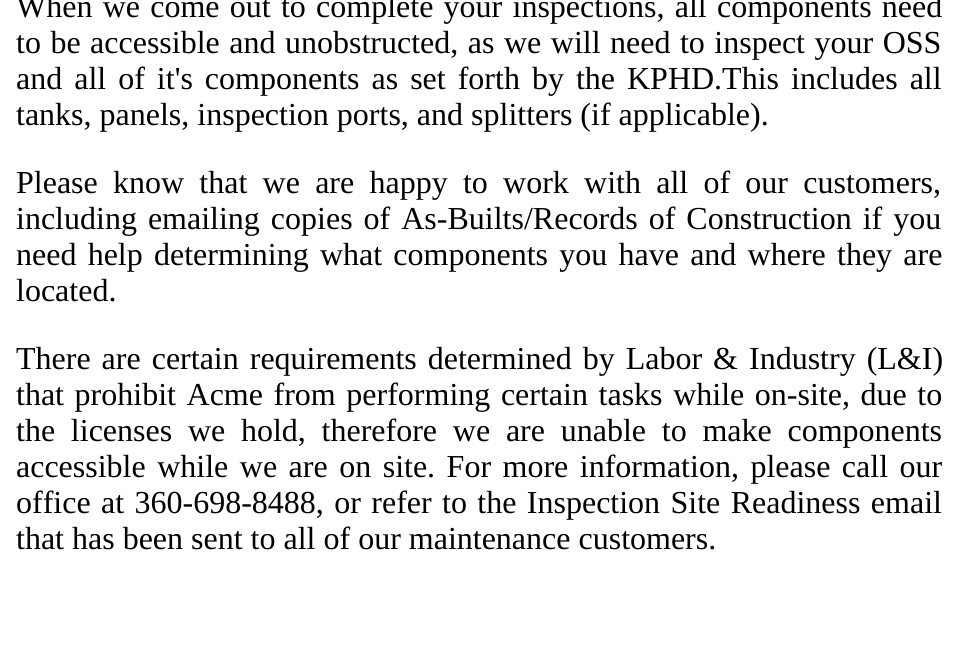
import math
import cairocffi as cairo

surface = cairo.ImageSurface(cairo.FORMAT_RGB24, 957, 667)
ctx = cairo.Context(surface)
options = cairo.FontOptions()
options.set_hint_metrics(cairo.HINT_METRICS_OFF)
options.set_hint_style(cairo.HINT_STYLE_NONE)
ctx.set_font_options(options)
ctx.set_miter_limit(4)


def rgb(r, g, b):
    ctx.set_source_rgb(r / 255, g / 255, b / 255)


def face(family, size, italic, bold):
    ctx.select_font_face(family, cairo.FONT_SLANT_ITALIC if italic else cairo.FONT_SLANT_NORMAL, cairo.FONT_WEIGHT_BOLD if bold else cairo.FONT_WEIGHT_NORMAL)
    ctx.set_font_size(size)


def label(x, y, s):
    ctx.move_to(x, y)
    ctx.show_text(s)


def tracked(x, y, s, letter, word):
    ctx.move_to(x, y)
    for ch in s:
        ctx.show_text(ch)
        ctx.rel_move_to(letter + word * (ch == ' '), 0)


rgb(255, 255, 255)
ctx.paint()
face('Liberation Serif', 32, 0, 0)
rgb(0, 0, 0)
tracked(16, 17, 'When we come out to complete your inspections, all components need', 0, 2.25)
tracked(16, 53, 'to be accessible and unobstructed, as we will need to inspect your OSS', 0, 1.5)
tracked(16, 89, 'and all of it\'s components as set forth by the KPHD.This includes all', 0, 4)
label(16, 125, 'tanks, panels, inspection ports, and splitters (if applicable).')
tracked(16, 193, 'Please know that we are happy to work with all of our customers,', 0, 7.25)
tracked(16, 229, 'including emailing copies of As-Builts/Records of Construction if you', 0, 3)
tracked(16, 265, 'need help determining what components you have and where they are', 0, 3.25)
label(16, 301, 'located.')
tracked(16, 369, 'There are certain requirements determined by Labor & Industry (L&I)', 0, 3)
tracked(16, 405, 'that prohibit Acme from performing certain tasks while on-site, due to', 0, 2.6)
tracked(16, 441, 'the licenses we hold, therefore we are unable to make components', 0, 7.75)
tracked(16, 477, 'accessible while we are on site. For more information, please call our', 0, 3.5)
tracked(16, 513, 'office at 360-698-8488, or refer to the Inspection Site Readiness email', 0, 2.4)
label(16, 549, 'that has been sent to all of our maintenance customers.')
surface.write_to_png('render.png')
